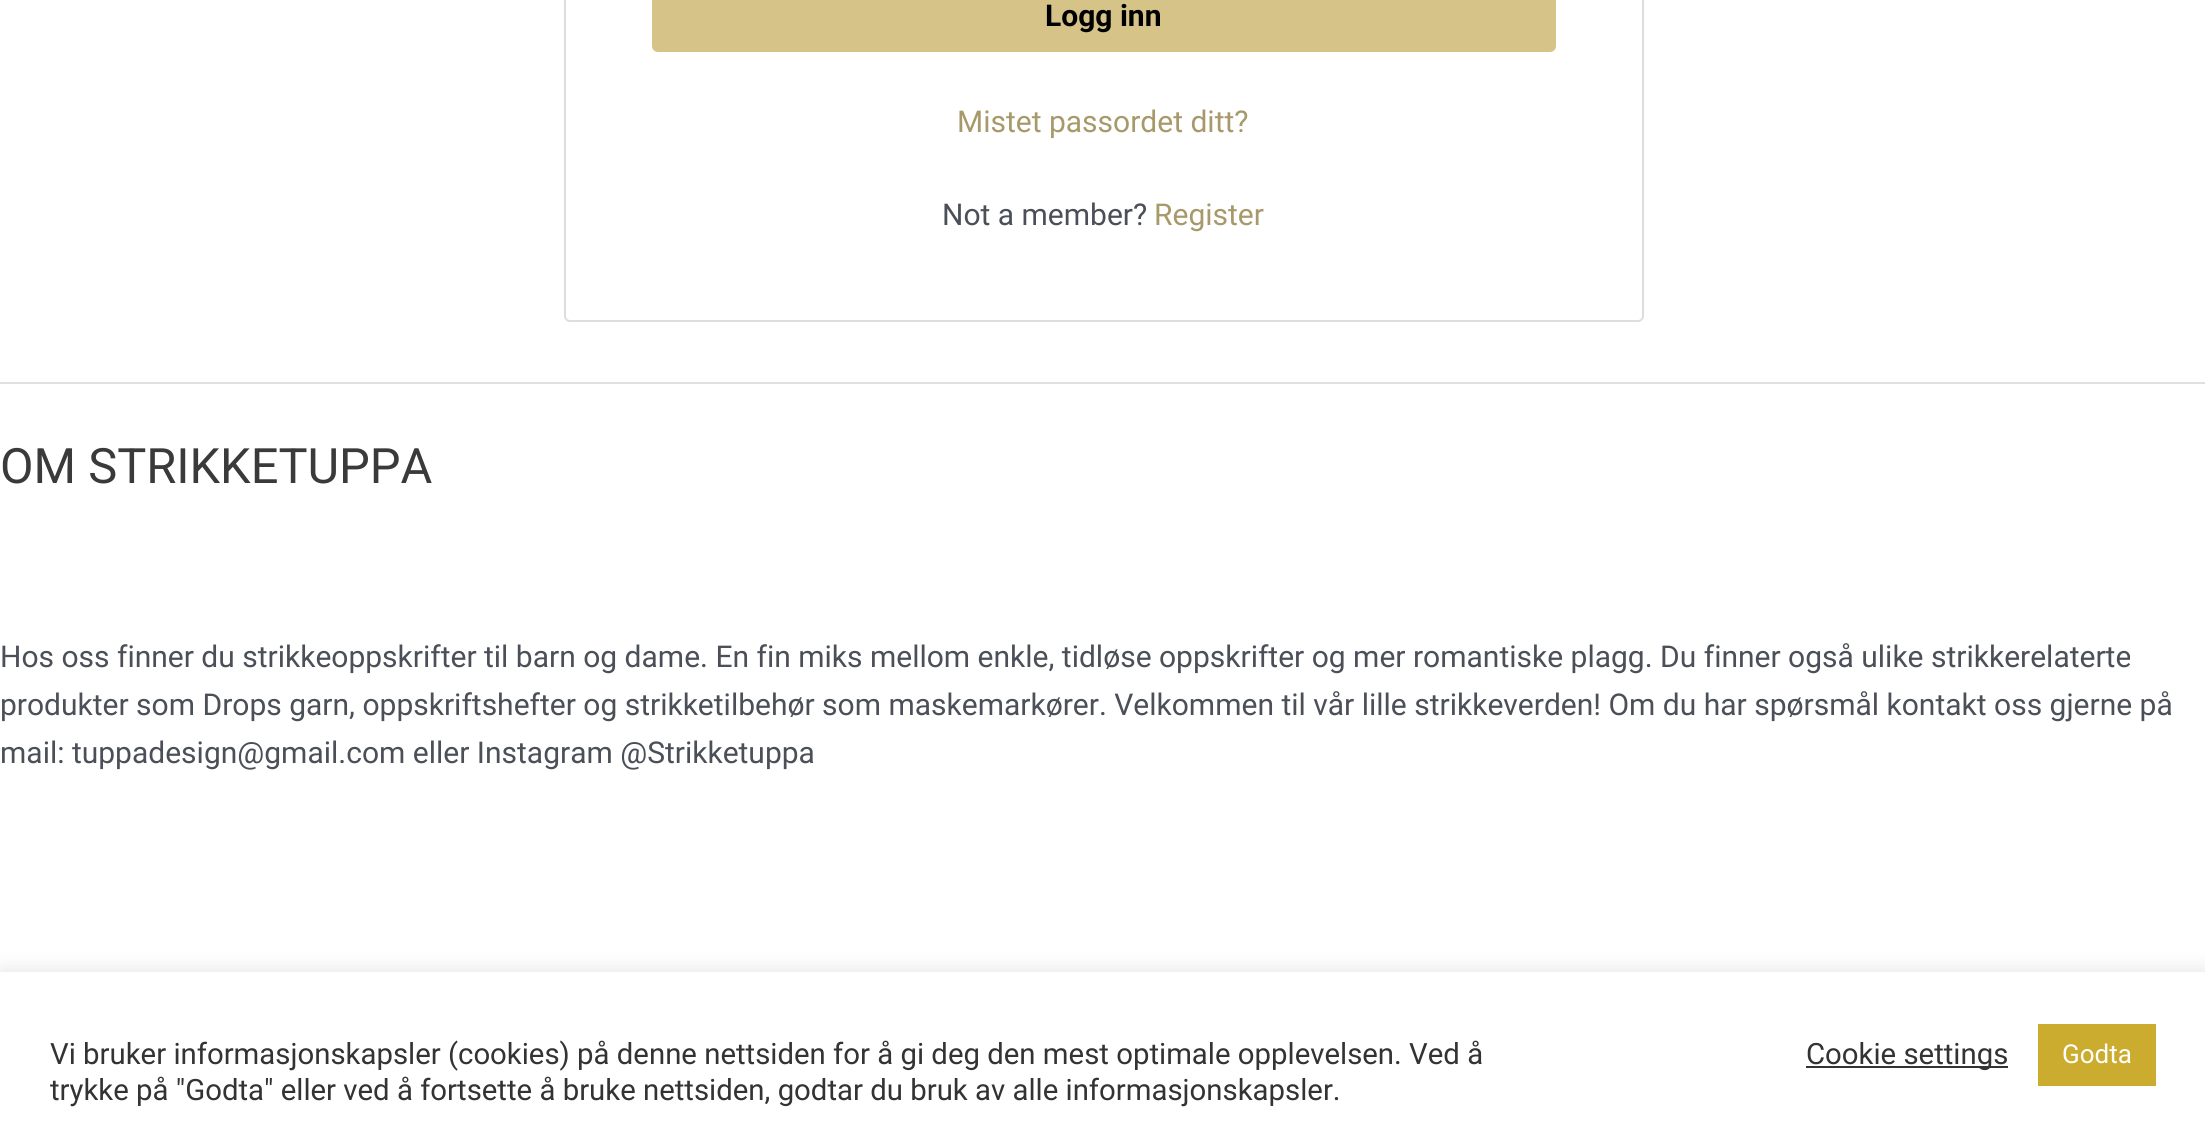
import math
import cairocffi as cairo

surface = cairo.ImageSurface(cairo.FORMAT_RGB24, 2205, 1135)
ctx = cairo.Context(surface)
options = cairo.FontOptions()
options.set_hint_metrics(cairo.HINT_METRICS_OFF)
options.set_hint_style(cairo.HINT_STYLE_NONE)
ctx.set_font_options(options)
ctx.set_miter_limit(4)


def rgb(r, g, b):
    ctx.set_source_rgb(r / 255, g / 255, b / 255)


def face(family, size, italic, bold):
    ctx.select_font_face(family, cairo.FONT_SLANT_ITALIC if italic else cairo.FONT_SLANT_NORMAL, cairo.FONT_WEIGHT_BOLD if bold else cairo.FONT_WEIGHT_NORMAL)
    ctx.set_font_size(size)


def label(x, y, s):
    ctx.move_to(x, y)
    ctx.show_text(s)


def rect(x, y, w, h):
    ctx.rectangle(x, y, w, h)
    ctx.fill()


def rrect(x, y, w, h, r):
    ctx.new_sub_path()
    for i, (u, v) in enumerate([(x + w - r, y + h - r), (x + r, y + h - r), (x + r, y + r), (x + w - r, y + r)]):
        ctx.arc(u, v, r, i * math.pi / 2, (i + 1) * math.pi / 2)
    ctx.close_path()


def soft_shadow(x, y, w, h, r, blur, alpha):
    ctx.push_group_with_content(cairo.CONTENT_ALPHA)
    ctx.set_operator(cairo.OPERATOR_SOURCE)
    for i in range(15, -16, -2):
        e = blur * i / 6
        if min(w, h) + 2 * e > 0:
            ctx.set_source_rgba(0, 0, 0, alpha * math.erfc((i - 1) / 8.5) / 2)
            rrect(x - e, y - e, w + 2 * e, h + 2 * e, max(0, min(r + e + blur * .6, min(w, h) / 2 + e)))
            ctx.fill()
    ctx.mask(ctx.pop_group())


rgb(255, 255, 255)
ctx.paint()
rrect(565, -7, 1078, 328, 5)
rgb(221, 221, 221)
ctx.stroke()
rgb(213, 195, 136)
rrect(652, -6, 904, 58, 6)
ctx.fill()
face('Roboto', 30, 0, 1)
rgb(0, 0, 0)
label(1045, 26, 'Logg inn')
face('Roboto', 30, 0, 0)
rgb(167, 153, 106)
label(957, 132, 'Mistet passordet ditt?')
rgb(75, 79, 88)
label(942, 225, 'Not a member?')
rgb(167, 153, 106)
label(1154, 225, 'Register')
rgb(224, 224, 224)
rect(0, 382, 2205, 2)
face('Roboto', 48.75, 0, 0)
rgb(58, 58, 58)
label(0, 483, 'OM STRIKKETUPPA')
face('Roboto', 30, 0, 0)
rgb(75, 79, 88)
label(0, 667, 'Hos oss finner du strikkeoppskrifter til barn og dame. En fin miks mellom enkle, tidløse oppskrifter og mer romantiske plagg. Du finner også ulike strikkerelaterte')
label(0, 715, 'produkter som Drops garn, oppskriftshefter og strikketilbehør som maskemarkører. Velkommen til vår lille strikkeverden! Om du har spørsmål kontakt oss gjerne på')
label(0, 763, 'mail: tuppadesign@gmail.com eller Instagram @Strikketuppa')
rgb(172, 171, 171)
soft_shadow(0, 970, 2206, 164, 0, 10, 0.3)
rgb(255, 255, 255)
rect(0, 972, 2205, 163)
face('Roboto', 29.35, 0, 0)
rgb(51, 51, 51)
label(50, 1064, 'Vi bruker informasjonskapsler (cookies) på denne nettsiden for å gi deg den mest optimale opplevelsen. Ved å')
label(50, 1100, 'trykke på "Godta" eller ved å fortsette å bruke nettsiden, godtar du bruk av alle informasjonskapsler.')
rect(1806, 1066, 202, 2)
label(1806, 1064, 'Cookie settings')
rgb(204, 172, 46)
rect(2038, 1024, 118, 62)
face('Roboto', 26, 0, 0)
rgb(255, 255, 255)
label(2062, 1063, 'Godta')
surface.write_to_png('render.png')
